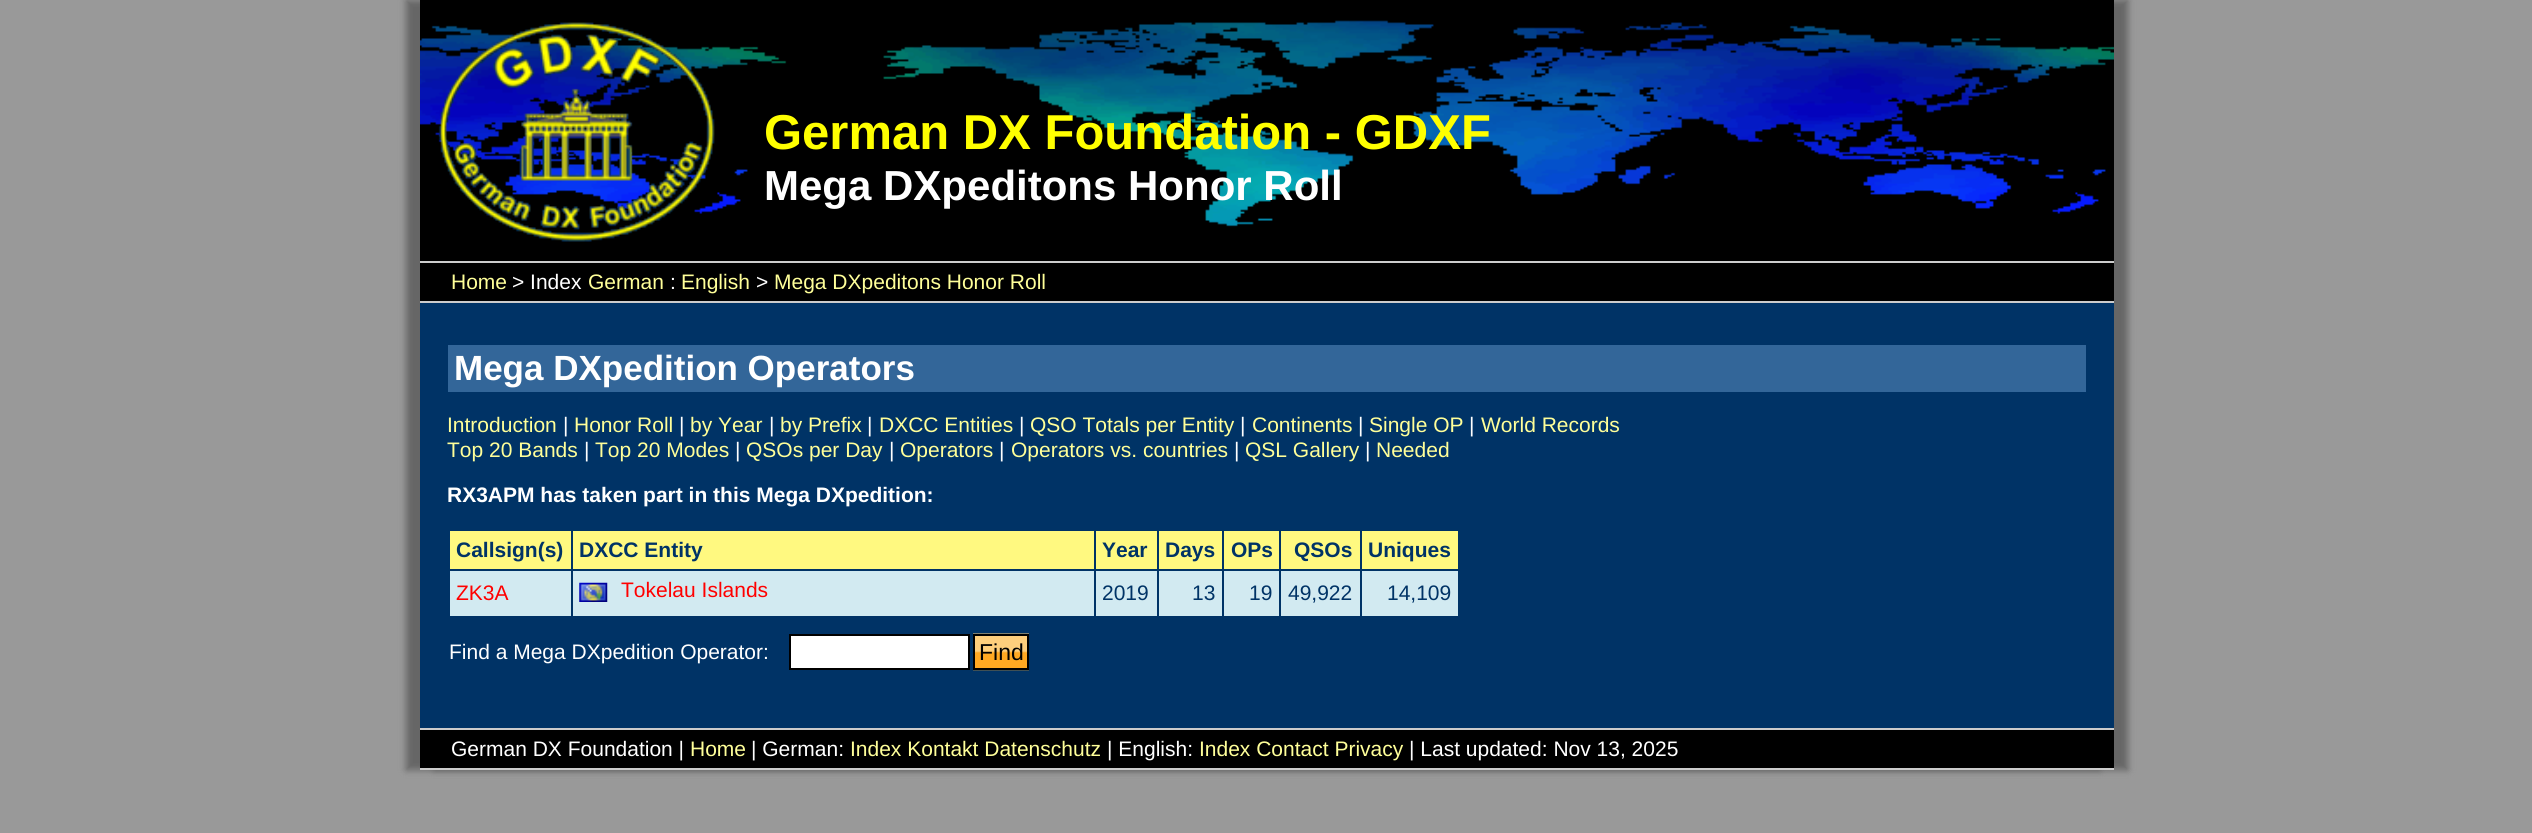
import math
import cairocffi as cairo

surface = cairo.ImageSurface(cairo.FORMAT_RGB24, 2532, 833)
ctx = cairo.Context(surface)
options = cairo.FontOptions()
options.set_hint_metrics(cairo.HINT_METRICS_OFF)
options.set_hint_style(cairo.HINT_STYLE_NONE)
ctx.set_font_options(options)
ctx.set_miter_limit(4)


def rgb(r, g, b):
    ctx.set_source_rgb(r / 255, g / 255, b / 255)


def face(family, size, italic, bold):
    ctx.select_font_face(family, cairo.FONT_SLANT_ITALIC if italic else cairo.FONT_SLANT_NORMAL, cairo.FONT_WEIGHT_BOLD if bold else cairo.FONT_WEIGHT_NORMAL)
    ctx.set_font_size(size)


def label(x, y, s):
    ctx.move_to(x, y)
    ctx.show_text(s)


def rect(x, y, w, h):
    ctx.rectangle(x, y, w, h)
    ctx.fill()


def rrect(x, y, w, h, r):
    ctx.new_sub_path()
    for i, (u, v) in enumerate([(x + w - r, y + h - r), (x + r, y + h - r), (x + r, y + r), (x + w - r, y + r)]):
        ctx.arc(u, v, r, i * math.pi / 2, (i + 1) * math.pi / 2)
    ctx.close_path()


def soft_shadow(x, y, w, h, r, blur, alpha):
    ctx.push_group_with_content(cairo.CONTENT_ALPHA)
    ctx.set_operator(cairo.OPERATOR_SOURCE)
    for i in range(15, -16, -2):
        e = blur * i / 6
        if min(w, h) + 2 * e > 0:
            ctx.set_source_rgba(0, 0, 0, alpha * math.erfc((i - 1) / 8.5) / 2)
            rrect(x - e, y - e, w + 2 * e, h + 2 * e, max(0, min(r + e + blur * .6, min(w, h) / 2 + e)))
            ctx.fill()
    ctx.mask(ctx.pop_group())


def image(path, x, y, w, h):
    ctx.save()
    ctx.set_source_surface(cairo.ImageSurface.create_from_png(path), x, y)
    ctx.rectangle(x, y, w, h)
    ctx.fill()
    ctx.restore()


rgb(153, 153, 153)
ctx.paint()
rgb(102, 102, 102)
soft_shadow(406, 0, 1694, 770, 0, 3.5, 1)
soft_shadow(434, 0, 1694, 770, 0, 3.5, 1)
rgb(0, 51, 102)
rect(420, 303, 1694, 425)
rgb(0, 0, 0)
rect(420, 0, 1694, 261)
image('image0.png', 420, 20, 1694, 207)
image('image1.png', 438, 22, 277, 220)
face('Liberation Sans', 49, 0, 1)
rgb(255, 255, 0)
label(764, 149, 'German DX Foundation - GDXF')
face('Liberation Sans', 42, 0, 1)
rgb(255, 255, 255)
label(764, 200, 'Mega DXpeditons Honor Roll')
rgb(0, 0, 0)
rect(420, 263, 1694, 38)
rgb(204, 204, 204)
rect(420, 261, 1694, 2)
rect(420, 301, 1694, 2)
face('Liberation Sans', 21, 0, 0)
rgb(255, 255, 153)
label(451, 289, 'Home')
rgb(255, 255, 255)
label(512, 289, '> Index')
rgb(255, 255, 153)
label(588, 289, 'German')
rgb(255, 255, 255)
label(670, 289, ':')
rgb(255, 255, 153)
label(681, 289, 'English')
rgb(255, 255, 255)
label(756, 289, '>')
rgb(255, 255, 153)
label(774, 289, 'Mega DXpeditons Honor Roll')
rgb(51, 102, 153)
rect(448, 345, 1638, 47)
face('Liberation Sans', 35, 0, 1)
rgb(255, 255, 255)
label(454, 380, 'Mega DXpedition Operators')
face('Liberation Sans', 21, 0, 0)
rgb(255, 255, 153)
label(447, 432, 'Introduction')
rgb(255, 255, 255)
label(563, 432, '|')
rgb(255, 255, 153)
label(574, 432, 'Honor Roll')
rgb(255, 255, 255)
label(679, 432, '|')
rgb(255, 255, 153)
label(690, 432, 'by Year')
rgb(255, 255, 255)
label(769, 432, '|')
rgb(255, 255, 153)
label(780, 432, 'by Prefix')
rgb(255, 255, 255)
label(867, 432, '|')
rgb(255, 255, 153)
label(879, 432, 'DXCC Entities')
rgb(255, 255, 255)
label(1019, 432, '|')
rgb(255, 255, 153)
label(1030, 432, 'QSO Totals per Entity')
rgb(255, 255, 255)
label(1240, 432, '|')
rgb(255, 255, 153)
label(1252, 432, 'Continents')
rgb(255, 255, 255)
label(1358, 432, '|')
rgb(255, 255, 153)
label(1369, 432, 'Single OP')
rgb(255, 255, 255)
label(1469, 432, '|')
rgb(255, 255, 153)
label(1481, 432, 'World Records')
label(447, 457, 'Top 20 Bands')
rgb(255, 255, 255)
label(584, 457, '|')
rgb(255, 255, 153)
label(595, 457, 'Top 20 Modes')
rgb(255, 255, 255)
label(735, 457, '|')
rgb(255, 255, 153)
label(746, 457, 'QSOs per Day')
rgb(255, 255, 255)
label(889, 457, '|')
rgb(255, 255, 153)
label(900, 457, 'Operators')
rgb(255, 255, 255)
label(999, 457, '|')
rgb(255, 255, 153)
label(1011, 457, 'Operators vs. countries')
rgb(255, 255, 255)
label(1234, 457, '|')
rgb(255, 255, 153)
label(1245, 457, 'QSL Gallery')
rgb(255, 255, 255)
label(1365, 457, '|')
rgb(255, 255, 153)
label(1376, 457, 'Needed')
face('Liberation Sans', 21, 0, 1)
rgb(255, 255, 255)
label(447, 502, 'RX3APM has taken part in this Mega DXpedition:')
rgb(210, 234, 241)
rect(450, 571, 1008, 45)
rgb(255, 249, 128)
rect(450, 531, 121, 38)
rgb(0, 51, 102)
label(456, 557, 'Callsign(s)')
rgb(255, 249, 128)
rect(573, 531, 521, 38)
rgb(0, 51, 102)
label(579, 557, 'DXCC Entity')
rgb(255, 249, 128)
rect(1096, 531, 61, 38)
rgb(0, 51, 102)
label(1102, 557, 'Year')
rgb(255, 249, 128)
rect(1159, 531, 63, 38)
rgb(0, 51, 102)
label(1165, 557, 'Days')
rgb(255, 249, 128)
rect(1224, 531, 55, 38)
rgb(0, 51, 102)
label(1231, 557, 'OPs')
rgb(255, 249, 128)
rect(1281, 531, 79, 38)
rgb(0, 51, 102)
label(1294, 557, 'QSOs')
rgb(255, 249, 128)
rect(1362, 531, 96, 38)
rgb(0, 51, 102)
label(1368, 557, 'Uniques')
face('Liberation Sans', 21, 0, 0)
rgb(255, 0, 0)
label(456, 600, 'ZK3A')
rgb(0, 51, 102)
rect(571, 569, 2, 49)
image('image2.png', 579, 582, 29, 20)
rgb(255, 0, 0)
label(621, 597, 'Tokelau Islands')
rgb(0, 51, 102)
rect(1094, 569, 2, 49)
label(1102, 600, '2019')
rect(1157, 569, 2, 49)
label(1192, 600, '13')
rect(1222, 569, 2, 49)
label(1249, 600, '19')
rect(1279, 569, 2, 49)
label(1288, 600, '49,922')
rect(1360, 569, 2, 49)
label(1387, 600, '14,109')
rgb(255, 255, 255)
label(449, 659, 'Find a Mega DXpedition Operator:')
ctx.rectangle(790, 635, 179, 34)
ctx.fill_preserve()
rgb(0, 0, 0)
ctx.stroke()
image('image3.png', 973, 633, 56, 38)
ctx.rectangle(974, 635, 54, 34)
ctx.stroke()
face('Liberation Sans', 23, 0, 0)
label(979, 660, 'Find')
rect(420, 730, 1694, 38)
rgb(204, 204, 204)
rect(420, 728, 1694, 2)
rect(420, 768, 1694, 2)
face('Liberation Sans', 21, 0, 0)
rgb(255, 255, 255)
label(451, 756, 'German DX Foundation |')
rgb(255, 255, 153)
label(690, 756, 'Home')
rgb(255, 255, 255)
label(751, 756, '| German:')
rgb(255, 255, 153)
label(850, 756, 'Index Kontakt Datenschutz')
rgb(255, 255, 255)
label(1107, 756, '| English:')
rgb(255, 255, 153)
label(1199, 756, 'Index Contact Privacy')
rgb(255, 255, 255)
label(1409, 756, '| Last updated: Nov 13, 2025')
surface.write_to_png('render.png')
